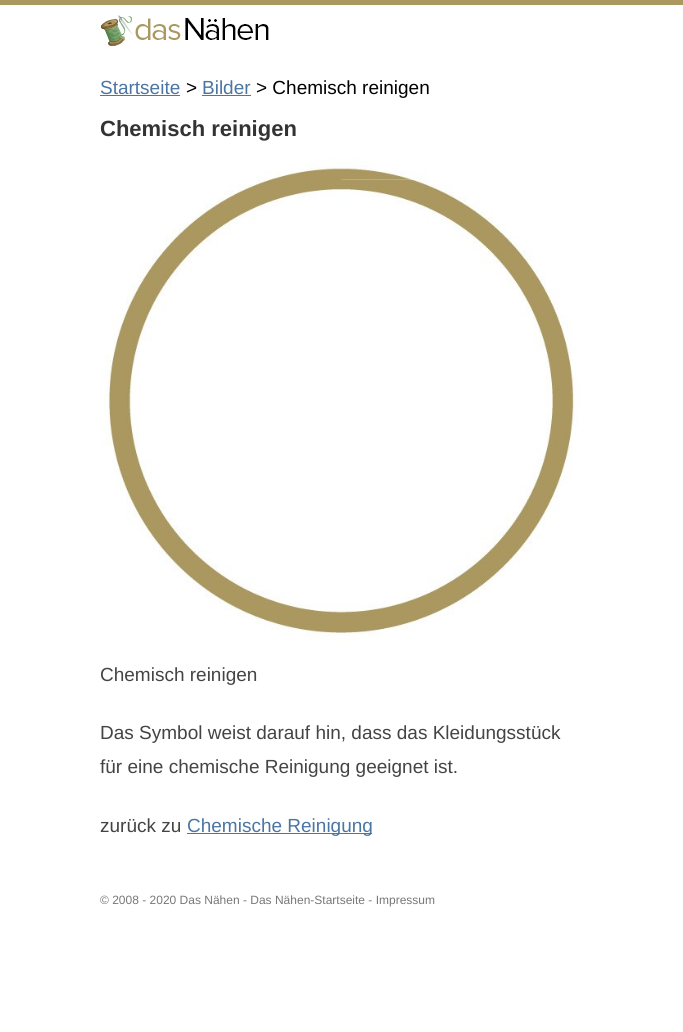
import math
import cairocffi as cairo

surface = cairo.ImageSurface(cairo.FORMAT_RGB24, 683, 1032)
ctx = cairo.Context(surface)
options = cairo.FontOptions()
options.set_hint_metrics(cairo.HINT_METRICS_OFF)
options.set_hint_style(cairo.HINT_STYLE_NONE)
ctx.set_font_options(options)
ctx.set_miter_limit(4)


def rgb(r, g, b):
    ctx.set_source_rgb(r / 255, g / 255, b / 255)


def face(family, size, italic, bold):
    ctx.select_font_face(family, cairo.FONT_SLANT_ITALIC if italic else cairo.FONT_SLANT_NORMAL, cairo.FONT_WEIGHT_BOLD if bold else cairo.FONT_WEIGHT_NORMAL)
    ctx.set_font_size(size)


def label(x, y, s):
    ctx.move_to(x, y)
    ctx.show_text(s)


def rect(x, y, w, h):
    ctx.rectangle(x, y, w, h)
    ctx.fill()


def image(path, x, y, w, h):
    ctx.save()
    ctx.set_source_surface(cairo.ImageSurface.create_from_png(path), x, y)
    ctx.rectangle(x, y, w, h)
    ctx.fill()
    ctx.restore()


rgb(255, 255, 255)
ctx.paint()
rgb(171, 152, 95)
rect(0, 0, 683, 5)
image('image0.png', 101, 15, 168, 31)
face('Liberation Sans', 19, 0, 0)
rgb(75, 117, 162)
label(100, 94, 'Startseite')
rect(100, 95, 80, 1)
rgb(0, 0, 0)
label(186, 94, '>')
rgb(75, 117, 162)
label(202, 94, 'Bilder')
rect(202, 95, 49, 1)
rgb(0, 0, 0)
label(256, 94, '> Chemisch reinigen')
face('Liberation Sans', 22, 0, 1)
rgb(51, 51, 51)
label(100, 136, 'Chemisch reinigen')
image('image1.png', 100, 158, 481, 483)
face('Liberation Sans', 19, 0, 0)
rgb(68, 68, 68)
label(100, 681, 'Chemisch reinigen')
label(100, 739, 'Das Symbol weist darauf hin, dass das Kleidungsstück')
label(100, 773, 'für eine chemische Reinigung geeignet ist.')
label(100, 832, 'zurück zu')
rgb(75, 117, 162)
rect(187, 833, 185, 1)
label(187, 832, 'Chemische Reinigung')
face('Liberation Sans', 12, 0, 0)
rgb(119, 119, 119)
label(100, 904, '© 2008 - 2020 Das Nähen - Das Nähen-Startseite - Impressum')
surface.write_to_png('render.png')
